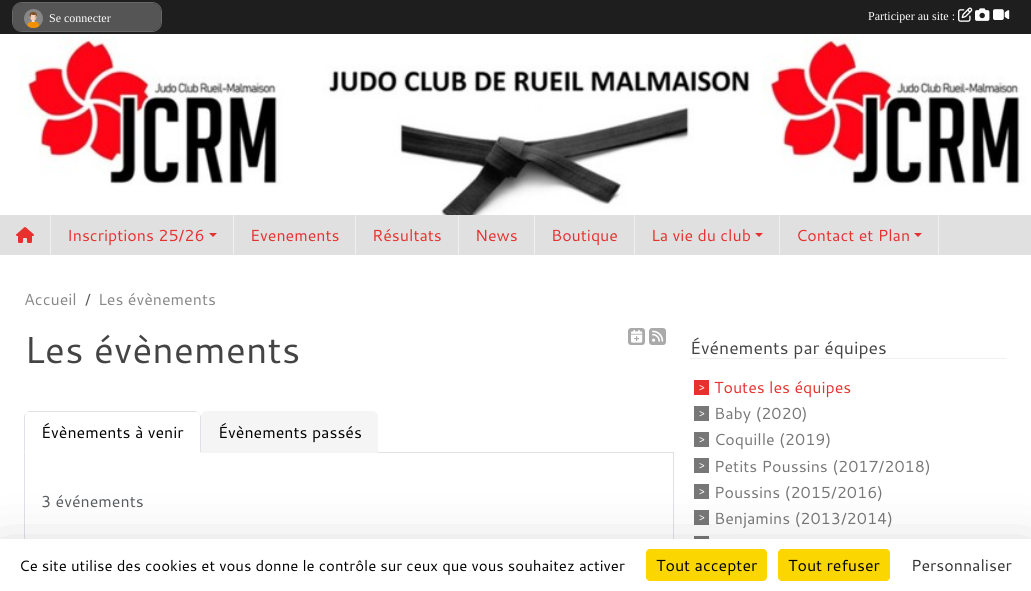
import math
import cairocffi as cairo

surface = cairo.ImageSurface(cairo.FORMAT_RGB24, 1031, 591)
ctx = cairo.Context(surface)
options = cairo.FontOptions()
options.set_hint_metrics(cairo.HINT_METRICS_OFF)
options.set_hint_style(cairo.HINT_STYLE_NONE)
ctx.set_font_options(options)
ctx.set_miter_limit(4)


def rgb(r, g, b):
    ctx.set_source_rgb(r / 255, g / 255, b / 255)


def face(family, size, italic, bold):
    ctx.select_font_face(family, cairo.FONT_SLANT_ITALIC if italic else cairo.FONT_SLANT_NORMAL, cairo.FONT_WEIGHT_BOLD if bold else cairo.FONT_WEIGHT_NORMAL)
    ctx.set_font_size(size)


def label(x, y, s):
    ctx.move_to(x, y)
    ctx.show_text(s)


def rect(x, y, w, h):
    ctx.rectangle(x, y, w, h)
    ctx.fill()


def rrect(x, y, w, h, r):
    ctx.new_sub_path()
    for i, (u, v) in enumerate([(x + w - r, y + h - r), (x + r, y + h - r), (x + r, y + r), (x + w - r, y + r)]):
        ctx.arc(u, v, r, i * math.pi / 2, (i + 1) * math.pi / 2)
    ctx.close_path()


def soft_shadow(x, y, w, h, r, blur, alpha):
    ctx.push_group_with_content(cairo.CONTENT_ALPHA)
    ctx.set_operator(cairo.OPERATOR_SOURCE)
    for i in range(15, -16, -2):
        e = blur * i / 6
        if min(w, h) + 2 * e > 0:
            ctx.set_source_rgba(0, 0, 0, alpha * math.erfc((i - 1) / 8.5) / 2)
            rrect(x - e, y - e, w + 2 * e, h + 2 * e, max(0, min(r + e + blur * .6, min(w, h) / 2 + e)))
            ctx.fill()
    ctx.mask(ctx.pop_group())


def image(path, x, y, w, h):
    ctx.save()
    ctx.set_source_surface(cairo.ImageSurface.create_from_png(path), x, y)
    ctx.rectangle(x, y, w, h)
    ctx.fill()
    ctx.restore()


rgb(224, 224, 224)
ctx.paint()
rgb(30, 30, 30)
rect(0, 0, 1031, 34)
rrect(12.5, 2.5, 149, 29, 9.5)
rgb(102, 102, 102)
ctx.set_line_width(1)
ctx.stroke()
rgb(85, 85, 85)
rrect(13, 3, 148, 28, 9)
ctx.fill()
image('image0.png', 24, 9, 19, 19)
face('Liberation Serif', 12, 0, 0)
rgb(255, 255, 255)
label(49, 22, 'Se connecter')
label(868, 20, 'Participer au site :')
image('image1.png', 958, 7, 15, 15)
image('image2.png', 975, 8, 15, 13)
image('image3.png', 993, 9, 17, 11)
image('image4.png', 0, 34, 1031, 181)
rgb(240, 240, 240)
rect(50, 215, 1, 40)
image('image5.png', 16, 227, 18, 16)
rect(233, 215, 1, 40)
face('Cantarell', 16, 0, 0)
rgb(230, 49, 46)
label(67, 241, 'Inscriptions 25/26')
ctx.new_path()
ctx.move_to(209, 233)
ctx.line_to(217, 233)
ctx.line_to(213, 237)
ctx.close_path()
ctx.fill()
rgb(240, 240, 240)
rect(355, 215, 1, 40)
rgb(230, 49, 46)
label(250, 241, 'Evenements')
rgb(240, 240, 240)
rect(458, 215, 1, 40)
rgb(230, 49, 46)
label(372, 241, 'Résultats')
rgb(240, 240, 240)
rect(534, 215, 1, 40)
rgb(230, 49, 46)
label(475, 241, 'News')
rgb(240, 240, 240)
rect(634, 215, 1, 40)
rgb(230, 49, 46)
label(551, 241, 'Boutique')
rgb(240, 240, 240)
rect(779, 215, 1, 40)
rgb(230, 49, 46)
label(651, 241, 'La vie du club')
ctx.new_path()
ctx.move_to(755, 233)
ctx.line_to(763, 233)
ctx.line_to(759, 237)
ctx.close_path()
ctx.fill()
rgb(240, 240, 240)
rect(938, 215, 1, 40)
rgb(230, 49, 46)
label(796, 241, 'Contact et Plan')
ctx.new_path()
ctx.move_to(914, 233)
ctx.line_to(922, 233)
ctx.line_to(918, 237)
ctx.close_path()
ctx.fill()
rgb(255, 255, 255)
rect(0, 255, 1031, 284)
rgb(136, 136, 136)
label(24, 305, 'Accueil')
rgb(89, 92, 95)
label(85, 305, '/')
rgb(136, 136, 136)
label(98, 305, 'Les évènements')
face('Cantarell', 37.5, 0, 0)
rgb(68, 68, 68)
label(24, 363, 'Les évènements')
rgb(170, 170, 170)
rrect(628, 328, 17, 17, 3)
ctx.fill()
image('image6.png', 631, 329, 12, 14)
rrect(649, 328, 17, 17, 3)
ctx.fill()
image('image7.png', 652, 330, 12, 12)
rgb(222, 226, 230)
rect(378, 452, 296, 1)
ctx.new_path()
ctx.move_to(30, 411)
ctx.curve_to(28, 411, 27, 412, 26, 413)
ctx.curve_to(27, 412, 28, 412, 30, 412)
ctx.line_to(195, 412)
ctx.curve_to(196, 412, 198, 412, 199, 413)
ctx.curve_to(198, 412, 196, 411, 195, 411)
ctx.close_path()
ctx.fill()
ctx.new_path()
ctx.move_to(201, 453)
ctx.line_to(201, 417)
ctx.curve_to(201, 416, 200, 414, 199, 413)
ctx.curve_to(200, 414, 200, 416, 200, 417)
ctx.line_to(200, 452)
ctx.close_path()
ctx.fill()
rgb(255, 255, 255)
ctx.new_path()
ctx.move_to(201, 453)
ctx.line_to(200, 452)
ctx.line_to(25, 452)
ctx.line_to(24, 453)
ctx.close_path()
ctx.fill()
rgb(222, 226, 230)
ctx.new_path()
ctx.move_to(24, 453)
ctx.line_to(25, 452)
ctx.line_to(25, 417)
ctx.curve_to(25, 416, 26, 414, 26, 413)
ctx.curve_to(25, 414, 24, 416, 24, 417)
ctx.close_path()
ctx.fill()
face('Cantarell', 16, 0, 0)
rgb(0, 0, 0)
label(41, 438, 'Évènements à venir')
rgb(245, 245, 245)
ctx.new_path()
ctx.move_to(207, 411)
ctx.line_to(372, 411)
ctx.curve_to(375.5, 411, 378, 413.5, 378, 417)
ctx.line_to(378, 453)
ctx.line_to(201, 453)
ctx.line_to(201, 417)
ctx.curve_to(201, 413.5, 203.5, 411, 207, 411)
ctx.close_path()
ctx.fill()
rgb(0, 0, 0)
label(218, 438, 'Évènements passés')
rgb(222, 226, 230)
rect(673, 453, 1, 86)
rect(24, 453, 1, 86)
rgb(89, 92, 95)
label(41, 507, '3 événements')
rgb(240, 240, 240)
rect(690, 358, 317, 1)
face('Cantarell', 17.6, 0, 0)
rgb(68, 68, 68)
label(690, 354, 'Événements par équipes')
rgb(230, 49, 46)
rect(694, 380, 15, 15)
face('Cantarell', 11, 0, 0)
rgb(255, 255, 255)
label(699, 391, '>')
face('Cantarell', 16, 0, 0)
rgb(230, 49, 46)
label(714, 393, 'Toutes les équipes')
rgb(119, 119, 119)
rect(694, 406, 15, 15)
face('Cantarell', 11, 0, 0)
rgb(255, 255, 255)
label(699, 417, '>')
face('Cantarell', 16, 0, 0)
rgb(119, 119, 119)
label(714, 419, 'Baby (2020)')
rect(694, 432, 15, 15)
face('Cantarell', 11, 0, 0)
rgb(255, 255, 255)
label(699, 443, '>')
face('Cantarell', 16, 0, 0)
rgb(119, 119, 119)
label(714, 445, 'Coquille (2019)')
rect(694, 458, 15, 15)
face('Cantarell', 11, 0, 0)
rgb(255, 255, 255)
label(699, 469, '>')
face('Cantarell', 16, 0, 0)
rgb(119, 119, 119)
label(714, 472, 'Petits Poussins (2017/2018)')
rect(694, 484, 15, 15)
face('Cantarell', 11, 0, 0)
rgb(255, 255, 255)
label(699, 495, '>')
face('Cantarell', 16, 0, 0)
rgb(119, 119, 119)
label(714, 498, 'Poussins (2015/2016)')
rect(694, 510, 15, 15)
face('Cantarell', 11, 0, 0)
rgb(255, 255, 255)
label(699, 521, '>')
face('Cantarell', 16, 0, 0)
rgb(119, 119, 119)
label(714, 524, 'Benjamins (2013/2014)')
rect(694, 536, 15, 3)
rgb(0, 0, 0)
soft_shadow(0, 559, 1031, 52, 0, 30, 0.25)
rgb(255, 255, 255)
rect(0, 539, 1031, 52)
face('Cantarell', 15, 0, 0)
rgb(0, 0, 0)
label(19, 571, 'Ce site utilise des cookies et vous donne le contrôle sur ceux que vous souhaitez activer')
rgb(251, 214, 0)
rrect(646, 549, 121, 32, 4)
ctx.fill()
face('Cantarell', 16, 0, 0)
rgb(0, 0, 0)
label(656, 571, 'Tout accepter')
rgb(251, 214, 0)
rrect(778, 549, 112, 32, 4)
ctx.fill()
rgb(0, 0, 0)
label(788, 571, 'Tout refuser')
rgb(51, 51, 51)
label(911, 571, 'Personnaliser')
surface.write_to_png('render.png')
